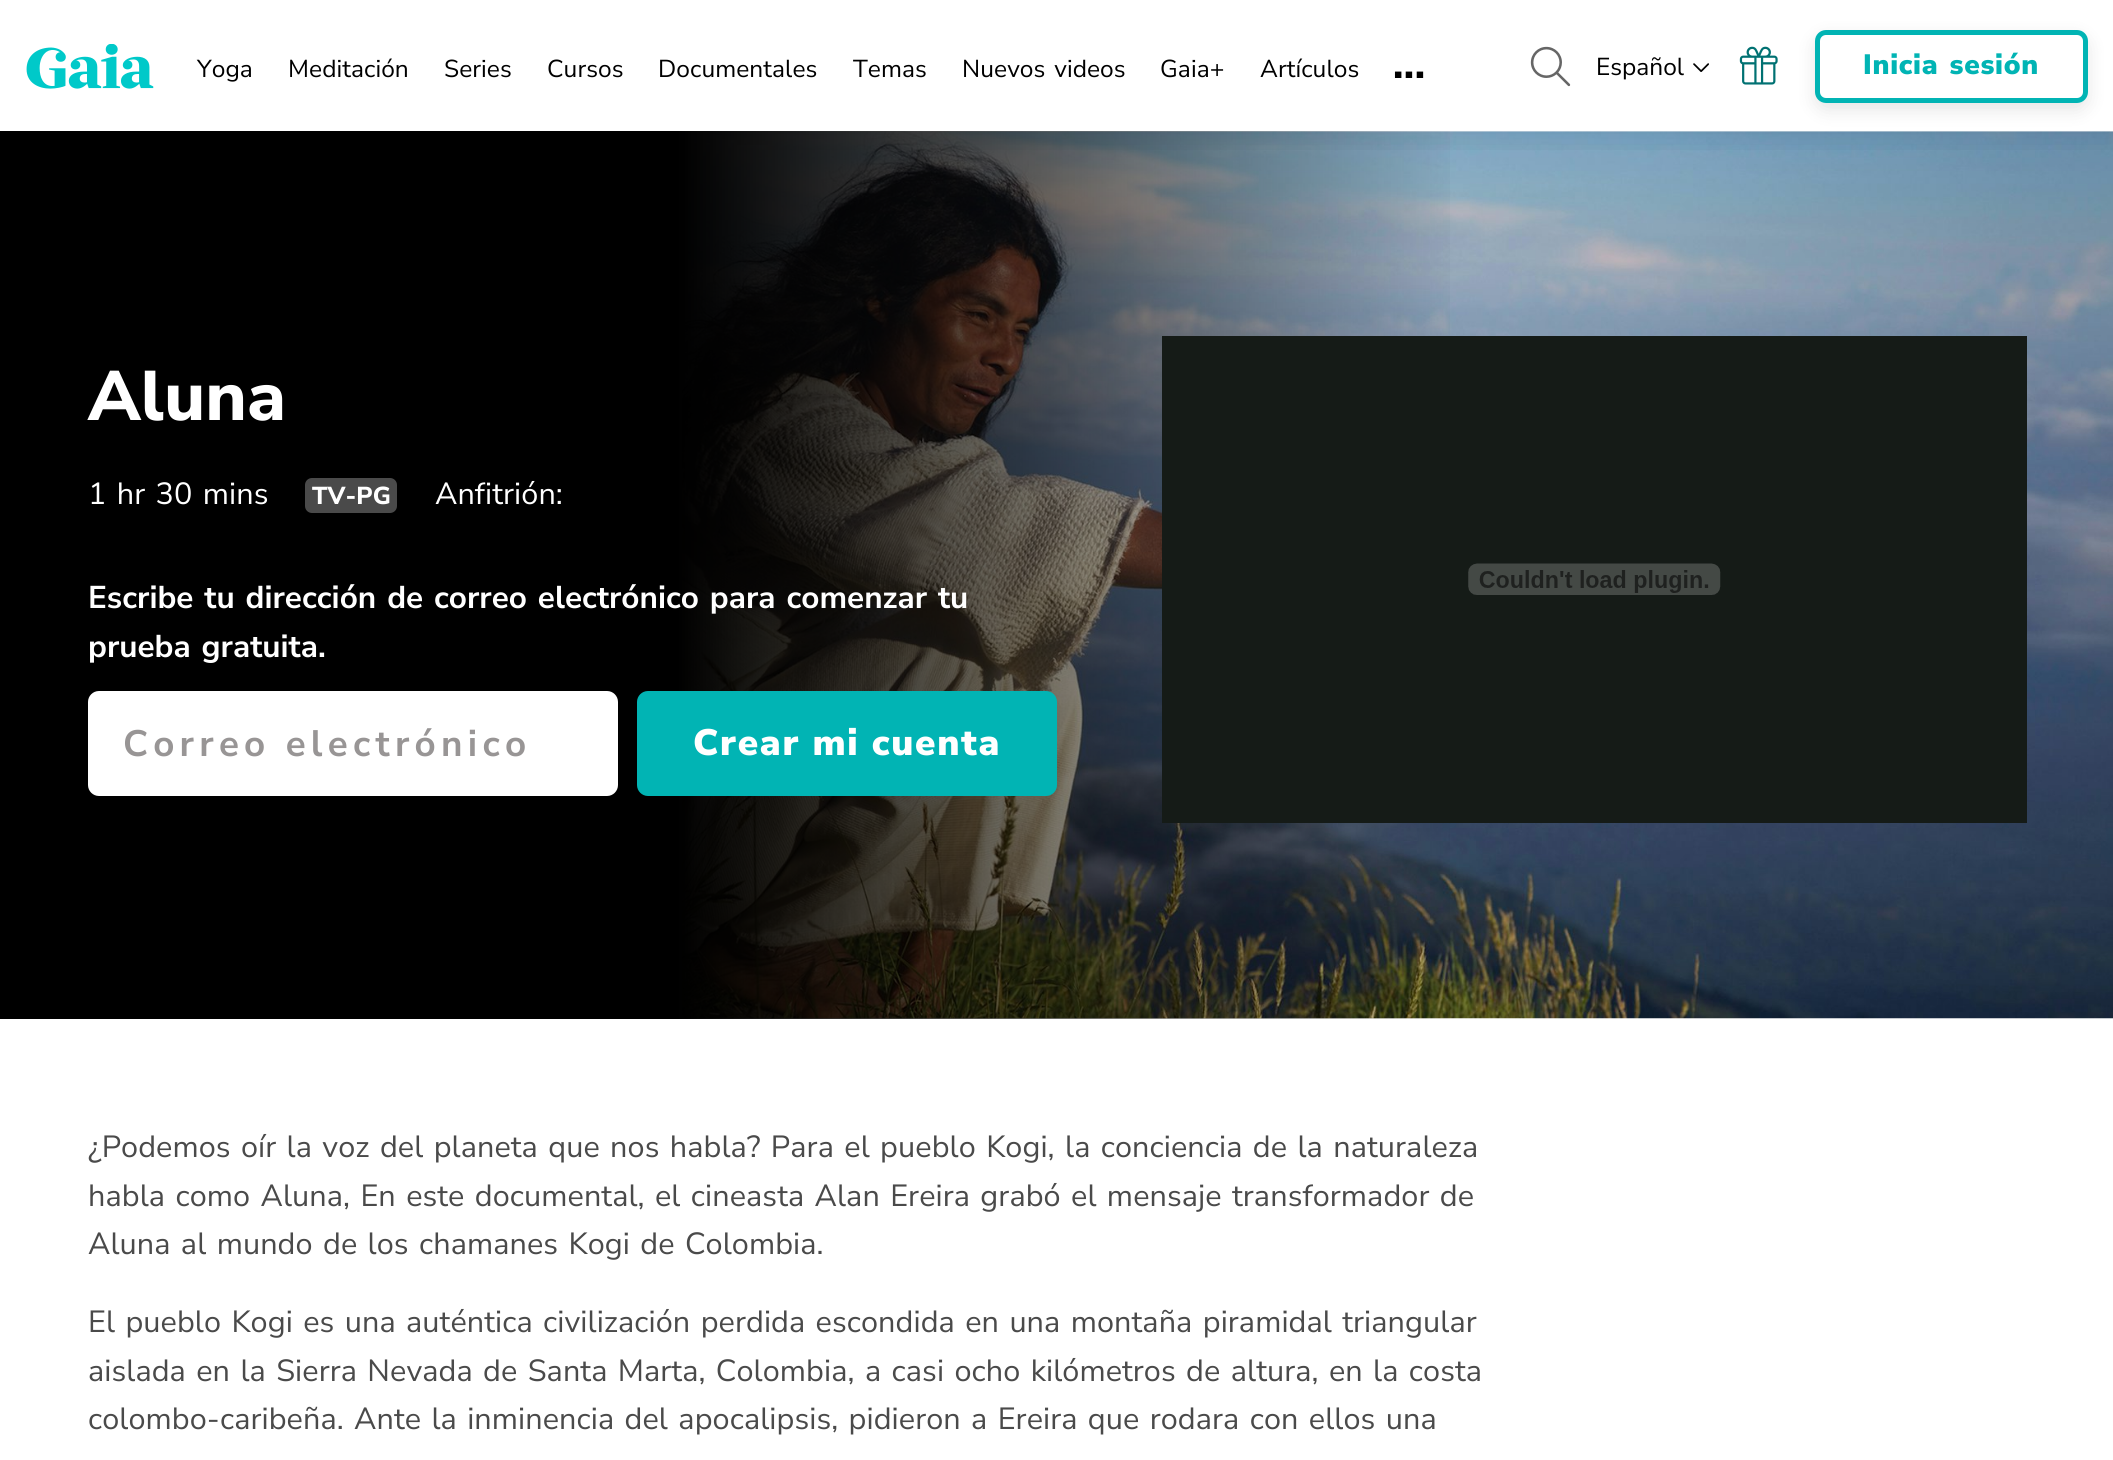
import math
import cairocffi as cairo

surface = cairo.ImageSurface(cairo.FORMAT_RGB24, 2113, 1460)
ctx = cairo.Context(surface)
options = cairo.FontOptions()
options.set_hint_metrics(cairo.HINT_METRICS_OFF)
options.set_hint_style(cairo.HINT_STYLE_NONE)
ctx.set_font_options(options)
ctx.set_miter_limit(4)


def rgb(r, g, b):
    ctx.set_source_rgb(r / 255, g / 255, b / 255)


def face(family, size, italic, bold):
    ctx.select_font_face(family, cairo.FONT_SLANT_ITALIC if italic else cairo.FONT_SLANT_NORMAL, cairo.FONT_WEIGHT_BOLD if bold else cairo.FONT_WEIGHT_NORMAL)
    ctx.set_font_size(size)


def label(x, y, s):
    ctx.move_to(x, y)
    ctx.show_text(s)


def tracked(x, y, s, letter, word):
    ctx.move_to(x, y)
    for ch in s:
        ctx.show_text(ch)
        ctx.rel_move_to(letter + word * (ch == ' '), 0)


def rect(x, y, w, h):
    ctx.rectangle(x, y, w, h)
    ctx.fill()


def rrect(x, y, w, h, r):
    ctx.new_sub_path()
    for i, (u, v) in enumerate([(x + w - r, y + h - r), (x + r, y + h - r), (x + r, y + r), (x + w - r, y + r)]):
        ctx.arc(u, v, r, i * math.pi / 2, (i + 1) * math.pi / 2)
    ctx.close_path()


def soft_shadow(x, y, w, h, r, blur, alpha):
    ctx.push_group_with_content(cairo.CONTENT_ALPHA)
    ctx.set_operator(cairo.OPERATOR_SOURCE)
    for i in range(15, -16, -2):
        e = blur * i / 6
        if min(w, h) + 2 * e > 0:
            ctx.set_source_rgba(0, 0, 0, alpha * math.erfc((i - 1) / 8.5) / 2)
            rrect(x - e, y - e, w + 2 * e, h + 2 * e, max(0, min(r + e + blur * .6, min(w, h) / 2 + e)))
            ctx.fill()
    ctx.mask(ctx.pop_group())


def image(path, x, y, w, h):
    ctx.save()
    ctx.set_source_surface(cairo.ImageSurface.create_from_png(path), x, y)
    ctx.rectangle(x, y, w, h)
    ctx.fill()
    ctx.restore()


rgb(255, 255, 255)
ctx.paint()
rgb(0, 0, 0)
rect(0, 131, 677, 888)
image('image4.png', 682, 131, 1431, 888)
gradient = cairo.LinearGradient(677, 575, 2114, 575)
gradient.add_color_stop_rgba(0, 0, 0, 0, 1)
gradient.add_color_stop_rgba(0.55, 0, 0, 0, 0)
ctx.set_source(gradient)
rect(677, 131, 773, 888)
ctx.save()
ctx.rectangle(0, 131, 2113, 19)
ctx.clip()
rgb(0, 0, 0)
soft_shadow(0, 5, 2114, 132, 0, 16, 0.1)
ctx.restore()
image('image0.png', 26, 44, 128, 45)
face('Nunito Sans', 24.5, 0, 0)
rgb(0, 0, 0)
tracked(197, 77, 'Yoga', 0.08, 0)
tracked(288, 77, 'Meditación', 0.08, 0)
tracked(444, 77, 'Series', 0.08, 0)
tracked(547, 77, 'Cursos', 0.08, 0)
tracked(658, 77, 'Documentales', 0.08, 0)
tracked(853, 77, 'Temas', 0.08, 0)
tracked(962, 77, 'Nuevos videos', 0.08, 2.4)
tracked(1160, 77, 'Gaia+', 0.08, 0)
tracked(1260, 77, 'Artículos', 0.08, 0)
face('Nunito Sans', 63, 0, 0)
tracked(1391, 78, '...', -3.5, 0)
image('image1.png', 1530, 46, 41, 41)
face('Nunito Sans', 24.5, 0, 0)
label(1596, 75, 'Español')
image('image2.png', 1693, 63, 16, 9)
image('image3.png', 1739, 46, 39, 39)
ctx.save()
ctx.set_fill_rule(cairo.FILL_RULE_EVEN_ODD)
ctx.new_path()
ctx.move_to(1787, 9)
ctx.line_to(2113, 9)
ctx.line_to(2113, 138)
ctx.line_to(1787, 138)
ctx.close_path()
ctx.move_to(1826, 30)
ctx.line_to(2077, 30)
ctx.curve_to(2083, 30, 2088, 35, 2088, 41)
ctx.line_to(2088, 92)
ctx.curve_to(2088, 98, 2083, 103, 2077, 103)
ctx.line_to(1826, 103)
ctx.curve_to(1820, 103, 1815, 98, 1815, 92)
ctx.line_to(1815, 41)
ctx.curve_to(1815, 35, 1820, 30, 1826, 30)
ctx.close_path()
ctx.clip()
rgb(0, 0, 0)
soft_shadow(1815, 37, 273, 73, 11, 9, 0.1)
ctx.restore()
rrect(1817.5, 32.5, 268, 68, 8.5)
rgb(1, 180, 180)
ctx.set_line_width(5)
ctx.stroke()
face('Nunito Sans Black', 28, 0, 0)
tracked(1863, 74, 'Inicia sesión', 0.75, 2.4)
face('Nunito Sans ExtraBold', 70, 0, 0)
rgb(255, 255, 255)
label(88, 420, 'Aluna')
face('Nunito Sans', 30.6, 0, 0)
tracked(88, 504, '1 hr 30 mins', 0.08, 2.4)
rgb(74, 74, 74)
rrect(305, 478, 92, 35, 7)
ctx.fill()
face('Nunito Sans ExtraBold', 24.5, 0, 0)
rgb(255, 255, 255)
tracked(312, 504, 'TV-PG', 0.08, 0)
face('Nunito Sans', 30.6, 0, 0)
tracked(435, 504, 'Anfitrión:', 0.08, 0)
face('Nunito Sans', 31.5, 0, 1)
tracked(88, 608, 'Escribe tu dirección de correo electrónico para comenzar tu', 0, 2.4)
tracked(88, 657, 'prueba gratuita.', 0, 2.4)
rrect(88, 691, 530, 105, 11)
ctx.fill()
face('Nunito Sans', 36.75, 0, 1)
rgb(152, 149, 149)
tracked(123, 756, 'Correo electrónico', 5.25, 0)
rgb(1, 180, 180)
rrect(637, 691, 420, 105, 11)
ctx.fill()
face('Nunito Sans Black', 36.75, 0, 0)
rgb(255, 255, 255)
tracked(693, 755, 'Crear mi cuenta', 1.75, 0)
rgb(21, 27, 23)
rect(1162, 336, 865, 487)
image('image5.png', 1468, 563, 253, 32)
face('Nunito Sans', 30.6, 0, 0)
rgb(74, 74, 74)
tracked(88, 1157, '¿Podemos oír la voz del planeta que nos habla? Para el pueblo Kogi, la conciencia de la naturaleza', 0.08, 2.4)
tracked(88, 1206, 'habla como Aluna, En este documental, el cineasta Alan Ereira grabó el mensaje transformador de', 0.08, 2.4)
tracked(88, 1254, 'Aluna al mundo de los chamanes Kogi de Colombia.', 0.08, 2.4)
tracked(88, 1332, 'El pueblo Kogi es una auténtica civilización perdida escondida en una montaña piramidal triangular', 0.08, 2.4)
tracked(88, 1381, 'aislada en la Sierra Nevada de Santa Marta, Colombia, a casi ocho kilómetros de altura, en la costa', 0.08, 2.4)
tracked(88, 1429, 'colombo-caribeña. Ante la inminencia del apocalipsis, pidieron a Ereira que rodara con ellos una', 0.08, 2.4)
surface.write_to_png('render.png')
